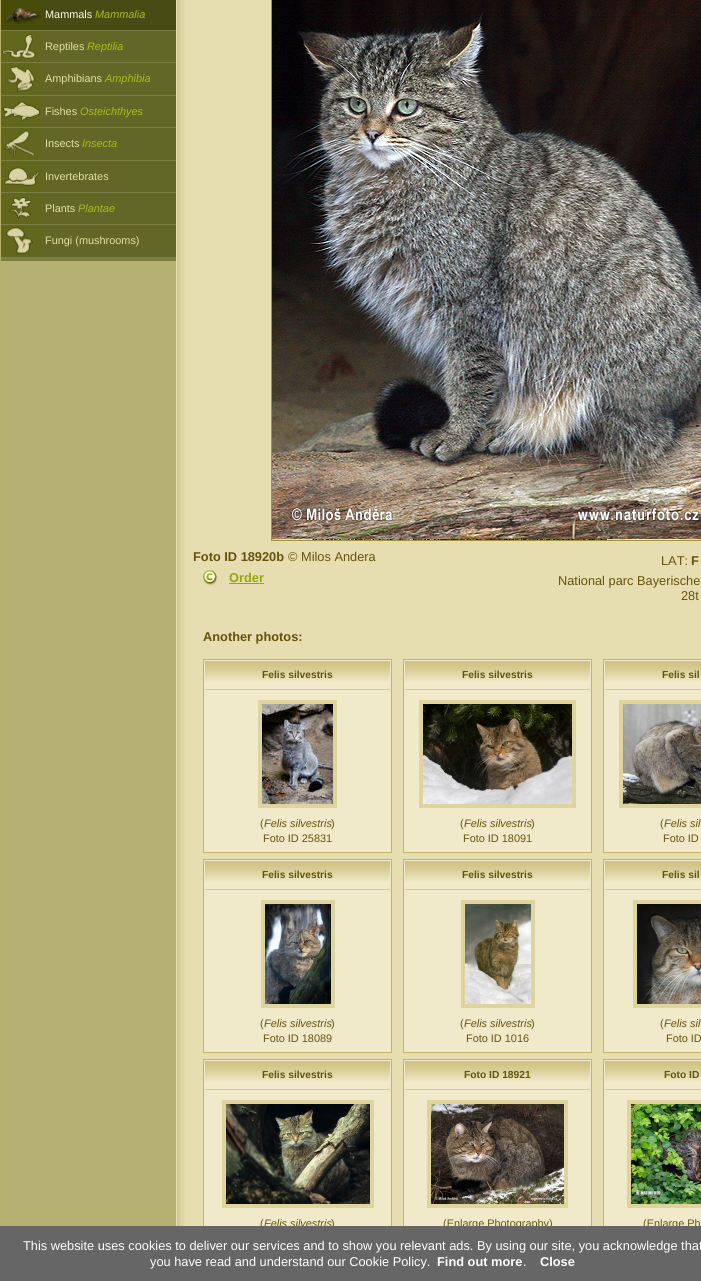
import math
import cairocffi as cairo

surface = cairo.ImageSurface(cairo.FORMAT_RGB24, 701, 1281)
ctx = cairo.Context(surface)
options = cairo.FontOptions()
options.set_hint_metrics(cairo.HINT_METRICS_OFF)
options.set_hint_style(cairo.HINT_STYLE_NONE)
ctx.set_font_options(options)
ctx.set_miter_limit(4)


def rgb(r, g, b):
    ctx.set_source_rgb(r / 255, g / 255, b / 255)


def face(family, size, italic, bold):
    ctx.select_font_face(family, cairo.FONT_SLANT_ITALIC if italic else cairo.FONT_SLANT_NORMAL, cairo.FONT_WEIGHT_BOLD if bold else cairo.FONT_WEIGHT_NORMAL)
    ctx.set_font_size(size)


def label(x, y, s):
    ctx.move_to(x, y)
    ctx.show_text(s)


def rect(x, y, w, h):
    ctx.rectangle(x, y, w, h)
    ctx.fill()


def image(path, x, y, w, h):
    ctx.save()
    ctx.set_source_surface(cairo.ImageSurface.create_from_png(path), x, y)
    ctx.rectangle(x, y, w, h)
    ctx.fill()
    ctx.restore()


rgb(255, 255, 255)
ctx.paint()
image('image0.png', 1, 261, 175, 965)
rgb(181, 176, 108)
rect(0, 0, 1, 1226)
rgb(123, 127, 68)
rect(1, 257, 175, 4)
rect(1, 30, 175, 1)
rgb(71, 76, 20)
rect(1, 0, 175, 30)
image('image1.png', 1, 0, 40, 30)
face('Liberation Sans', 10.9, 0, 0)
rgb(254, 249, 223)
label(45, 18, 'Mammals')
face('Liberation Sans', 10.9, 1, 0)
rgb(169, 190, 27)
label(95, 18, 'Mammalia')
rgb(123, 127, 68)
rect(1, 62, 175, 1)
rgb(98, 103, 39)
rect(1, 31, 175, 31)
image('image2.png', 1, 31, 40, 31)
face('Liberation Sans', 10.9, 0, 0)
rgb(224, 226, 160)
label(45, 50, 'Reptiles')
face('Liberation Sans', 10.9, 1, 0)
rgb(169, 190, 27)
label(87, 50, 'Reptilia')
rgb(123, 127, 68)
rect(1, 95, 175, 1)
rgb(98, 103, 39)
rect(1, 63, 175, 32)
image('image3.png', 1, 63, 40, 32)
face('Liberation Sans', 10.9, 0, 0)
rgb(224, 226, 160)
label(45, 82, 'Amphibians')
face('Liberation Sans', 10.9, 1, 0)
rgb(169, 190, 27)
label(105, 82, 'Amphibia')
rgb(123, 127, 68)
rect(1, 127, 175, 1)
rgb(98, 103, 39)
rect(1, 96, 175, 31)
image('image4.png', 1, 96, 40, 31)
face('Liberation Sans', 10.9, 0, 0)
rgb(224, 226, 160)
label(45, 115, 'Fishes')
face('Liberation Sans', 10.9, 1, 0)
rgb(169, 190, 27)
label(80, 115, 'Osteichthyes')
rgb(123, 127, 68)
rect(1, 160, 175, 1)
rgb(98, 103, 39)
rect(1, 128, 175, 32)
image('image5.png', 1, 128, 40, 32)
face('Liberation Sans', 10.9, 0, 0)
rgb(224, 226, 160)
label(45, 147, 'Insects')
face('Liberation Sans', 10.9, 1, 0)
rgb(169, 190, 27)
label(82, 147, 'Insecta')
rgb(123, 127, 68)
rect(1, 192, 175, 1)
rgb(98, 103, 39)
rect(1, 161, 175, 31)
image('image6.png', 1, 161, 40, 31)
face('Liberation Sans', 10.9, 0, 0)
rgb(224, 226, 160)
label(45, 180, 'Invertebrates')
rgb(123, 127, 68)
rect(1, 224, 175, 1)
rgb(98, 103, 39)
rect(1, 193, 175, 31)
image('image7.png', 1, 193, 40, 31)
rgb(224, 226, 160)
label(45, 212, 'Plants')
face('Liberation Sans', 10.9, 1, 0)
rgb(169, 190, 27)
label(78, 212, 'Plantae')
rgb(98, 103, 39)
rect(1, 225, 175, 32)
image('image8.png', 1, 225, 40, 32)
face('Liberation Sans', 10.9, 0, 0)
rgb(224, 226, 160)
label(45, 244, 'Fungi (mushrooms)')
rgb(230, 222, 176)
rect(176, 0, 525, 1226)
image('image9.png', 177, 0, 8, 1226)
ctx.rectangle(271.5, -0.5, 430, 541)
rgb(164, 148, 55)
ctx.set_line_width(1)
ctx.stroke()
image('image10.png', 272, 0, 429, 540)
face('Liberation Sans', 12.8, 0, 1)
rgb(101, 83, 11)
label(193, 561, 'Foto ID 18920b')
face('Liberation Sans', 12.8, 0, 0)
label(288, 561, '© Milos Andera')
image('image11.png', 203, 570, 14, 16)
face('Liberation Sans', 12.8, 0, 1)
rgb(146, 166, 14)
label(229, 582, 'Order')
rect(229, 583, 35, 1)
face('Liberation Sans', 12.8, 0, 0)
rgb(101, 83, 11)
label(661, 565, 'LAT:')
face('Liberation Sans', 12.8, 0, 1)
label(691, 565, 'F')
face('Liberation Sans', 12.8, 0, 0)
label(558, 585, 'National parc Bayerische')
label(681, 600, '28t')
face('Liberation Sans', 12.8, 0, 1)
label(203, 641, 'Another photos:')
rgb(240, 234, 202)
ctx.rectangle(203.5, 659.5, 188, 193)
ctx.fill_preserve()
rgb(194, 180, 99)
ctx.stroke()
image('image12.png', 205, 661, 185, 21)
rgb(214, 203, 143)
rect(205, 689, 185, 1)
face('Liberation Sans', 10.25, 0, 1)
rgb(101, 83, 11)
label(262, 678, 'Felis silvestris')
ctx.rectangle(260, 702, 75, 104)
rgb(222, 212, 158)
ctx.set_line_width(4)
ctx.stroke()
image('image13.png', 262, 704, 71, 100)
face('Liberation Sans', 10.9, 0, 0)
rgb(101, 83, 11)
label(260, 827, '(')
face('Liberation Sans', 10.9, 1, 0)
label(264, 827, 'Felis silvestris')
face('Liberation Sans', 10.9, 0, 0)
label(331, 827, ')')
label(263, 842, 'Foto ID 25831')
rgb(240, 234, 202)
ctx.rectangle(403.5, 659.5, 188, 193)
ctx.fill_preserve()
rgb(194, 180, 99)
ctx.set_line_width(1)
ctx.stroke()
image('image12.png', 405, 661, 185, 21)
rgb(214, 203, 143)
rect(405, 689, 185, 1)
face('Liberation Sans', 10.25, 0, 1)
rgb(101, 83, 11)
label(462, 678, 'Felis silvestris')
ctx.rectangle(421, 702, 153, 104)
rgb(222, 212, 158)
ctx.set_line_width(4)
ctx.stroke()
image('image14.png', 423, 704, 149, 100)
face('Liberation Sans', 10.9, 0, 0)
rgb(101, 83, 11)
label(460, 827, '(')
face('Liberation Sans', 10.9, 1, 0)
label(464, 827, 'Felis silvestris')
face('Liberation Sans', 10.9, 0, 0)
label(531, 827, ')')
label(463, 842, 'Foto ID 18091')
rgb(240, 234, 202)
ctx.rectangle(603.5, 659.5, 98, 193)
ctx.fill_preserve()
rgb(194, 180, 99)
ctx.set_line_width(1)
ctx.stroke()
image('image15.png', 605, 661, 96, 21)
rgb(214, 203, 143)
rect(605, 689, 96, 1)
face('Liberation Sans', 10.25, 0, 1)
rgb(101, 83, 11)
label(662, 678, 'Felis sil')
ctx.rectangle(621, 702, 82, 104)
rgb(222, 212, 158)
ctx.set_line_width(4)
ctx.stroke()
image('image16.png', 623, 704, 78, 100)
face('Liberation Sans', 10.9, 0, 0)
rgb(101, 83, 11)
label(660, 827, '(')
face('Liberation Sans', 10.9, 1, 0)
label(664, 827, 'Felis sil')
face('Liberation Sans', 10.9, 0, 0)
label(663, 842, 'Foto ID')
rgb(240, 234, 202)
ctx.rectangle(203.5, 859.5, 188, 193)
ctx.fill_preserve()
rgb(194, 180, 99)
ctx.set_line_width(1)
ctx.stroke()
image('image12.png', 205, 861, 185, 21)
rgb(214, 203, 143)
rect(205, 889, 185, 1)
face('Liberation Sans', 10.25, 0, 1)
rgb(101, 83, 11)
label(262, 878, 'Felis silvestris')
ctx.rectangle(263, 902, 70, 104)
rgb(222, 212, 158)
ctx.set_line_width(4)
ctx.stroke()
image('image17.png', 265, 904, 66, 100)
face('Liberation Sans', 10.9, 0, 0)
rgb(101, 83, 11)
label(260, 1027, '(')
face('Liberation Sans', 10.9, 1, 0)
label(264, 1027, 'Felis silvestris')
face('Liberation Sans', 10.9, 0, 0)
label(331, 1027, ')')
label(263, 1042, 'Foto ID 18089')
rgb(240, 234, 202)
ctx.rectangle(403.5, 859.5, 188, 193)
ctx.fill_preserve()
rgb(194, 180, 99)
ctx.set_line_width(1)
ctx.stroke()
image('image12.png', 405, 861, 185, 21)
rgb(214, 203, 143)
rect(405, 889, 185, 1)
face('Liberation Sans', 10.25, 0, 1)
rgb(101, 83, 11)
label(462, 878, 'Felis silvestris')
ctx.rectangle(463, 902, 70, 104)
rgb(222, 212, 158)
ctx.set_line_width(4)
ctx.stroke()
image('image18.png', 465, 904, 66, 100)
face('Liberation Sans', 10.9, 0, 0)
rgb(101, 83, 11)
label(460, 1027, '(')
face('Liberation Sans', 10.9, 1, 0)
label(464, 1027, 'Felis silvestris')
face('Liberation Sans', 10.9, 0, 0)
label(531, 1027, ')')
label(466, 1042, 'Foto ID 1016')
rgb(240, 234, 202)
ctx.rectangle(603.5, 859.5, 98, 193)
ctx.fill_preserve()
rgb(194, 180, 99)
ctx.set_line_width(1)
ctx.stroke()
image('image15.png', 605, 861, 96, 21)
rgb(214, 203, 143)
rect(605, 889, 96, 1)
face('Liberation Sans', 10.25, 0, 1)
rgb(101, 83, 11)
label(662, 878, 'Felis sil')
ctx.rectangle(635, 902, 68, 104)
rgb(222, 212, 158)
ctx.set_line_width(4)
ctx.stroke()
image('image19.png', 637, 904, 64, 100)
face('Liberation Sans', 10.9, 0, 0)
rgb(101, 83, 11)
label(660, 1027, '(')
face('Liberation Sans', 10.9, 1, 0)
label(664, 1027, 'Felis sil')
face('Liberation Sans', 10.9, 0, 0)
label(666, 1042, 'Foto ID')
rgb(240, 234, 202)
rect(204, 1060, 187, 166)
ctx.rectangle(203.5, 1059.5, 188, 193)
rgb(194, 180, 99)
ctx.set_line_width(1)
ctx.stroke()
image('image12.png', 205, 1061, 185, 21)
rgb(214, 203, 143)
rect(205, 1089, 185, 1)
face('Liberation Sans', 10.25, 0, 1)
rgb(101, 83, 11)
label(262, 1078, 'Felis silvestris')
ctx.rectangle(224, 1102, 148, 104)
rgb(222, 212, 158)
ctx.set_line_width(4)
ctx.stroke()
image('image20.png', 226, 1104, 144, 100)
face('Liberation Sans', 10.9, 0, 0)
rgb(101, 83, 11)
label(260, 1227, '(')
face('Liberation Sans', 10.9, 1, 0)
label(264, 1227, 'Felis silvestris')
face('Liberation Sans', 10.9, 0, 0)
label(331, 1227, ')')
rgb(240, 234, 202)
rect(404, 1060, 187, 166)
ctx.rectangle(403.5, 1059.5, 188, 177)
rgb(194, 180, 99)
ctx.set_line_width(1)
ctx.stroke()
image('image12.png', 405, 1061, 185, 21)
rgb(214, 203, 143)
rect(405, 1089, 185, 1)
face('Liberation Sans', 10.25, 0, 1)
rgb(101, 83, 11)
label(464, 1078, 'Foto ID 18921')
ctx.rectangle(429, 1102, 137, 104)
rgb(222, 212, 158)
ctx.set_line_width(4)
ctx.stroke()
image('image21.png', 431, 1104, 133, 100)
face('Liberation Sans', 10.9, 0, 0)
rgb(101, 83, 11)
label(443, 1227, '(Enlarge Photography)')
rgb(240, 234, 202)
rect(604, 1060, 97, 166)
ctx.rectangle(603.5, 1059.5, 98, 177)
rgb(194, 180, 99)
ctx.set_line_width(1)
ctx.stroke()
image('image15.png', 605, 1061, 96, 21)
rgb(214, 203, 143)
rect(605, 1089, 96, 1)
face('Liberation Sans', 10.25, 0, 1)
rgb(101, 83, 11)
label(664, 1078, 'Foto ID')
ctx.rectangle(629, 1102, 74, 104)
rgb(222, 212, 158)
ctx.set_line_width(4)
ctx.stroke()
image('image22.png', 631, 1104, 70, 100)
face('Liberation Sans', 10.9, 0, 0)
rgb(101, 83, 11)
label(643, 1227, '(Enlarge Ph')
rgb(102, 102, 102)
rect(0, 1226, 701, 55)
face('Liberation Sans', 12.8, 0, 0)
rgb(255, 255, 255)
label(23, 1250, 'This website uses cookies to deliver our services and to show you relevant ads. By using our site, you acknowledge that')
label(150, 1266, 'you have read and understand our Cookie Policy.')
face('Liberation Sans', 12.8, 0, 1)
label(437, 1266, 'Find out more')
face('Liberation Sans', 12.8, 0, 0)
label(523, 1266, '.')
face('Liberation Sans', 12.8, 0, 1)
label(540, 1266, 'Close')
surface.write_to_png('render.png')
